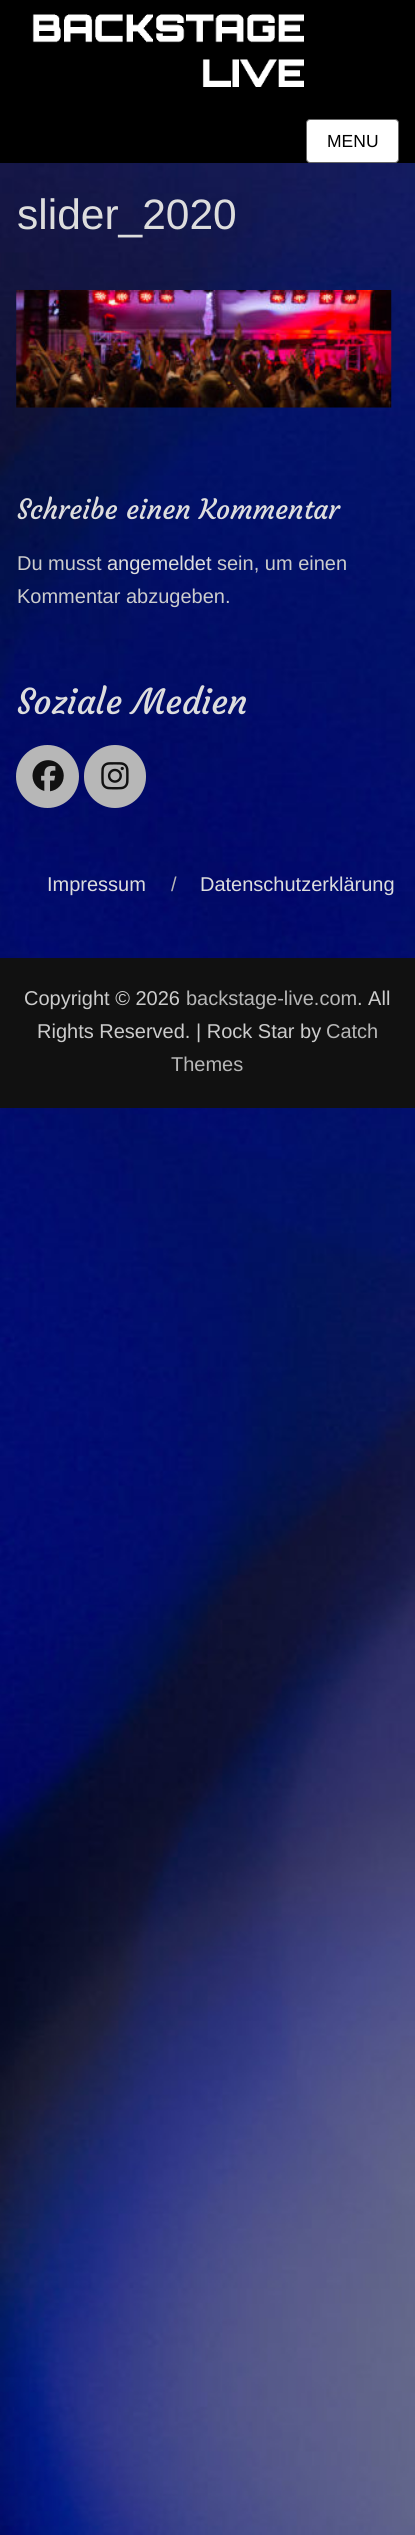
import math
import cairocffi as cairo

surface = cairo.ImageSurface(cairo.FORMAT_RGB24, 415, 2535)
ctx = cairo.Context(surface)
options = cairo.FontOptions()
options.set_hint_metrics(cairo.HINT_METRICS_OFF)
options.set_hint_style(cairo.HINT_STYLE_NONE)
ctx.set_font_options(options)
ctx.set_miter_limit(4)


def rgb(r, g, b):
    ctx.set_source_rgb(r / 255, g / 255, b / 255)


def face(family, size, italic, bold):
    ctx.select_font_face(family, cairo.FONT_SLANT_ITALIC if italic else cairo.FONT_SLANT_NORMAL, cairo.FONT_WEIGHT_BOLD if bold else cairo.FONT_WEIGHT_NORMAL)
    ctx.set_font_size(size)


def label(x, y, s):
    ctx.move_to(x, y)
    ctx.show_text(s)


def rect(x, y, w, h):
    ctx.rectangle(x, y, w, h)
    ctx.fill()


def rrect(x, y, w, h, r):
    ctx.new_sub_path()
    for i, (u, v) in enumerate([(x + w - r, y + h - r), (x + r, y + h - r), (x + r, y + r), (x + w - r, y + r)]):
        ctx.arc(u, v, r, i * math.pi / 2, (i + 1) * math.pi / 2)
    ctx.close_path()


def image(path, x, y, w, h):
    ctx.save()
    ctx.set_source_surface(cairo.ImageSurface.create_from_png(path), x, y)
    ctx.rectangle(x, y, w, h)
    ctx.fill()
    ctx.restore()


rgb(255, 255, 255)
ctx.paint()
image('image0.png', 0, 163, 415, 2372)
rgb(0, 0, 0)
rect(0, 0, 415, 163)
image('image1.png', 32, 14, 272, 73)
rgb(255, 255, 255)
rrect(306.5, 119.5, 92, 43, 3.5)
ctx.fill_preserve()
rgb(102, 102, 102)
ctx.set_line_width(1)
ctx.stroke()
face('Liberation Sans', 17.5, 0, 0)
rgb(0, 0, 0)
label(327, 147, 'MENU')
face('Liberation Sans', 42.5, 0, 0)
rgb(221, 221, 221)
label(17, 229, 'slider_2020')
image('image2.png', 16, 290, 376, 118)
face('Courgette', 27.5, 0, 0)
label(17, 519, 'Schreibe einen Kommentar')
face('Liberation Sans', 20, 0, 0)
rgb(204, 204, 204)
label(17, 570, 'Du musst')
rgb(221, 221, 221)
label(107, 570, 'angemeldet')
rgb(204, 204, 204)
label(217, 570, 'sein, um einen')
label(17, 603, 'Kommentar abzugeben.')
face('Courgette', 35, 0, 0)
rgb(221, 221, 221)
label(17, 714, 'Soziale Medien')
rgb(183, 183, 183)
ctx.new_path()
ctx.arc(47.5, 776.5, 31.5, 0, 2 * math.pi)
ctx.fill()
image('image3.png', 32, 760, 32, 32)
rrect(84, 745, 62, 63, 31)
ctx.fill()
image('image4.png', 101, 762, 28, 28)
face('Liberation Sans', 20, 0, 0)
rgb(221, 221, 221)
label(47, 891, 'Impressum')
rgb(183, 183, 183)
label(171, 891, '/')
rgb(221, 221, 221)
label(200, 891, 'Datenschutzerklärung')
rgb(17, 17, 17)
rect(0, 958, 415, 150)
rgb(204, 204, 204)
label(24, 1005, 'Copyright © 2026')
rgb(183, 183, 183)
label(186, 1005, 'backstage-live.com')
rgb(204, 204, 204)
label(357, 1005, '. All')
label(37, 1038, 'Rights Reserved. | Rock Star by')
rgb(183, 183, 183)
label(326, 1038, 'Catch')
label(171, 1071, 'Themes')
surface.write_to_png('render.png')
